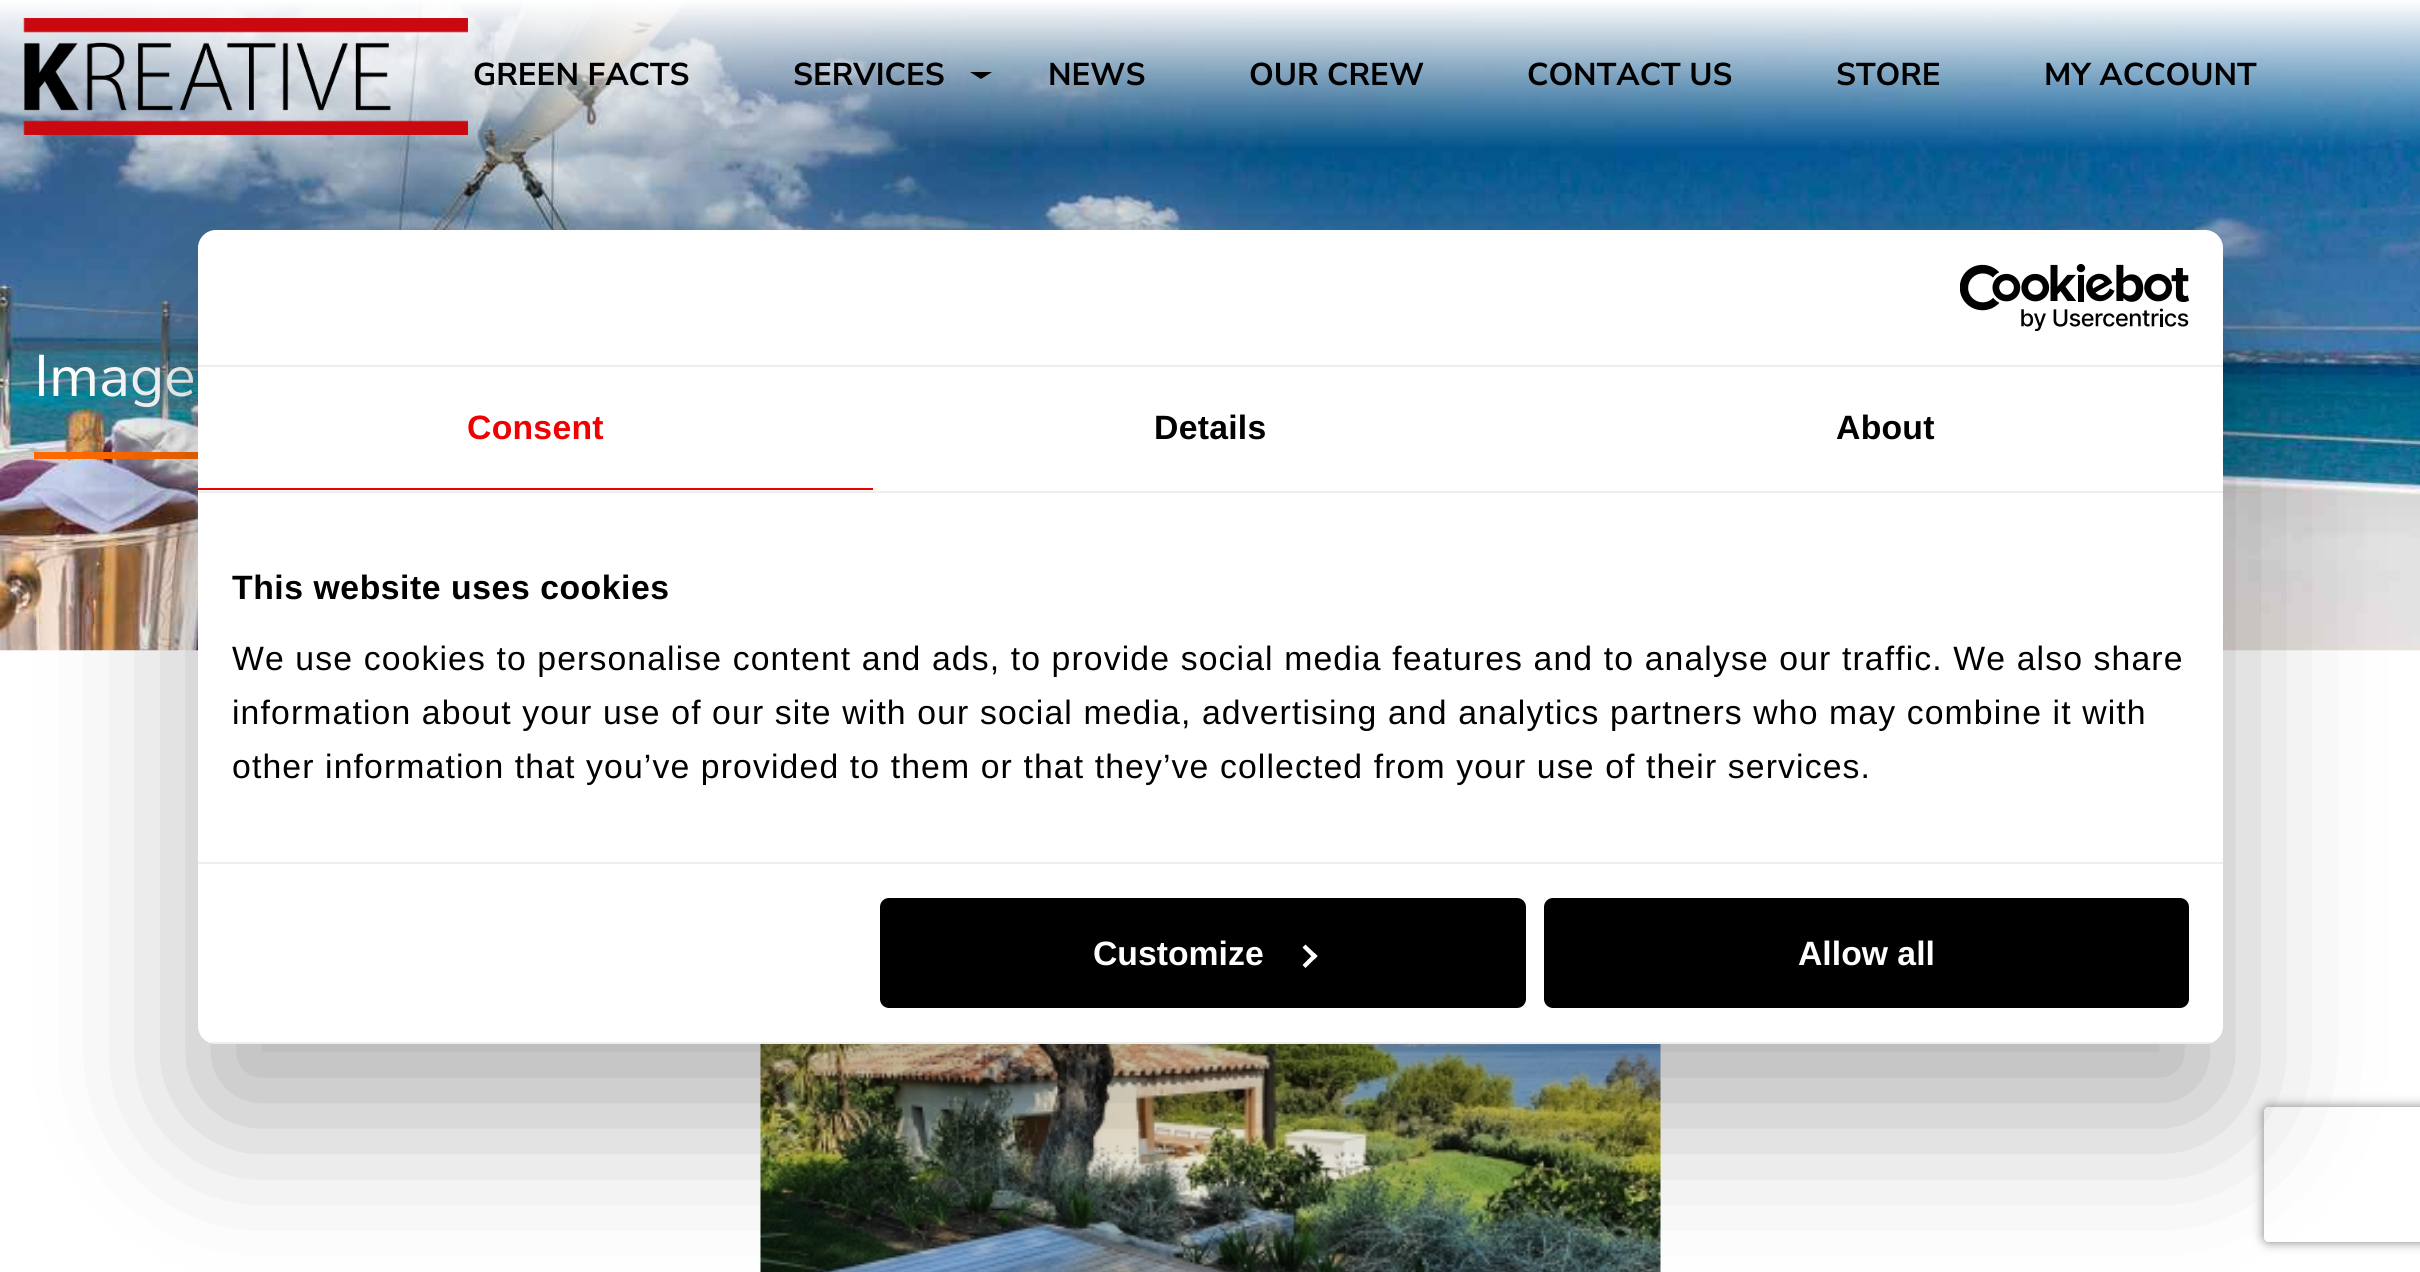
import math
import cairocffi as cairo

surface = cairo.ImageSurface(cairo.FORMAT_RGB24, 2420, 1272)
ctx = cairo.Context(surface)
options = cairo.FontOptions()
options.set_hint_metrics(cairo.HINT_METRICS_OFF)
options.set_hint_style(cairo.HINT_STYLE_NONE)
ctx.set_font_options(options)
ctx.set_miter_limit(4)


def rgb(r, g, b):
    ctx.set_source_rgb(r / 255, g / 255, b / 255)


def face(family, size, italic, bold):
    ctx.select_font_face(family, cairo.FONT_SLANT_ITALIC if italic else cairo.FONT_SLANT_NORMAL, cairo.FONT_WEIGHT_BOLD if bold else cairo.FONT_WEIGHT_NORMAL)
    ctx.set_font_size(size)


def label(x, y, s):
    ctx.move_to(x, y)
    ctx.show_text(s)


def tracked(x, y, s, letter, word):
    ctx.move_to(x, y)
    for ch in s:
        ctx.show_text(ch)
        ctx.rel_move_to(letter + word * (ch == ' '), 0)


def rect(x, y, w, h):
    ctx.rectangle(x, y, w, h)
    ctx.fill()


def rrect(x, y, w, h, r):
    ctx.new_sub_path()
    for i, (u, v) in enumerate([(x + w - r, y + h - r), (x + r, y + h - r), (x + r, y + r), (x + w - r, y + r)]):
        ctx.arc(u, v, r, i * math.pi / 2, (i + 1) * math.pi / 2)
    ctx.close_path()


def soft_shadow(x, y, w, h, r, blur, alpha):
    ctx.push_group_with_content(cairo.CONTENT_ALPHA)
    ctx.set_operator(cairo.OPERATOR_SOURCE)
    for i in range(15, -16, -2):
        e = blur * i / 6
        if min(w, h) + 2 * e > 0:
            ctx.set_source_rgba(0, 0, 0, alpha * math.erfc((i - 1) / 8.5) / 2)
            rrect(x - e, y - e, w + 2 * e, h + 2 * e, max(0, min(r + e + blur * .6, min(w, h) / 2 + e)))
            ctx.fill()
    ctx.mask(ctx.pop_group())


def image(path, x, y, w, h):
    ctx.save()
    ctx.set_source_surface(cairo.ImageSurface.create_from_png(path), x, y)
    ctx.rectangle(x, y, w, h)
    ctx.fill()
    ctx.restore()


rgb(255, 255, 255)
ctx.paint()
image('image1.png', 0, 0, 2420, 651)
image('image0.png', 23, 18, 445, 117)
face('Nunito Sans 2 ExtraLight', 31.5, 0, 0)
rgb(0, 0, 0)
label(473, 85, 'GREEN FACTS')
label(793, 85, 'SERVICES')
ctx.new_path()
ctx.move_to(970, 72)
ctx.line_to(992, 72)
ctx.line_to(981, 79)
ctx.close_path()
ctx.fill()
label(1048, 85, 'NEWS')
label(1249, 85, 'OUR CREW')
label(1527, 85, 'CONTACT US')
label(1836, 85, 'STORE')
label(2044, 85, 'MY ACCOUNT')
face('Nunito Sans ExtraLight', 58.5, 0, 0)
rgb(255, 255, 255)
label(34, 396, 'Image')
rgb(255, 106, 1)
rect(34, 452, 164, 7)
image('image3.png', 760, 1044, 901, 228)
rgb(0, 0, 0)
soft_shadow(198, 302, 2025, 814, 18, 76.5, 0.3)
rgb(255, 255, 255)
rrect(198, 230, 2025, 814, 18)
ctx.fill()
rgb(238, 238, 238)
rect(198, 365, 2025, 2)
image('image2.png', 1960, 264, 229, 67)
rect(198, 491, 2025, 2)
rgb(240, 0, 0)
rect(198, 488, 675, 2)
face('Liberation Sans', 33.75, 0, 1)
tracked(467, 439, 'Consent', 0.25, 0)
rgb(0, 0, 0)
tracked(1154, 439, 'Details', 0.25, 0)
tracked(1836, 439, 'About', 0.25, 0)
rgb(238, 238, 238)
rect(198, 862, 2025, 2)
rgb(0, 0, 0)
tracked(232, 599, 'This website uses cookies', 0.55, 0)
face('Liberation Sans', 33.75, 0, 0)
tracked(232, 670, 'We use cookies to personalise content and ads, to provide social media features and to analyse our traffic. We also share', 1.12, 0)
tracked(232, 724, 'information about your use of our site with our social media, advertising and analytics partners who may combine it with', 1.12, 0)
tracked(232, 778, 'other information that you’ve provided to them or that they’ve collected from your use of their services.', 1.12, 0)
ctx.save()
rrect(198, 230, 2025, 814, 18)
ctx.clip()
rgb(238, 238, 238)
rect(208, 1042, 2005, 2)
ctx.restore()
rrect(882.5, 900.5, 641, 105, 6.5)
ctx.fill_preserve()
ctx.set_line_width(5)
ctx.stroke()
face('Liberation Sans', 33.75, 0, 1)
rgb(255, 255, 255)
label(1093, 965, 'Customize')
ctx.new_path()
ctx.move_to(1305.5, 944.5)
ctx.line_to(1317.5, 956)
ctx.line_to(1314.5, 959.5)
ctx.line_to(1302.5, 947.5)
ctx.close_path()
ctx.fill()
ctx.new_path()
ctx.move_to(1314.5, 953)
ctx.line_to(1317.5, 956)
ctx.line_to(1305.5, 968)
ctx.line_to(1302.5, 965)
ctx.close_path()
ctx.fill()
rgb(0, 0, 0)
rrect(1546.5, 900.5, 640, 105, 6.5)
ctx.fill_preserve()
ctx.stroke()
rgb(255, 255, 255)
label(1798, 965, 'Allow all')
ctx.save()
ctx.set_fill_rule(cairo.FILL_RULE_EVEN_ODD)
ctx.new_path()
ctx.move_to(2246, 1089)
ctx.line_to(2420, 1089)
ctx.line_to(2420, 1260)
ctx.line_to(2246, 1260)
ctx.close_path()
ctx.move_to(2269, 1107)
ctx.line_to(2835, 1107)
ctx.curve_to(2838, 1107, 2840, 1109, 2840, 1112)
ctx.line_to(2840, 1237)
ctx.curve_to(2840, 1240, 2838, 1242, 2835, 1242)
ctx.line_to(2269, 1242)
ctx.curve_to(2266, 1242, 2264, 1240, 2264, 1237)
ctx.line_to(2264, 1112)
ctx.curve_to(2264, 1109, 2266, 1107, 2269, 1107)
ctx.close_path()
ctx.clip()
rgb(128, 128, 128)
soft_shadow(2264, 1107, 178, 135, 5, 5.5, 1)
ctx.restore()
surface.write_to_png('render.png')
